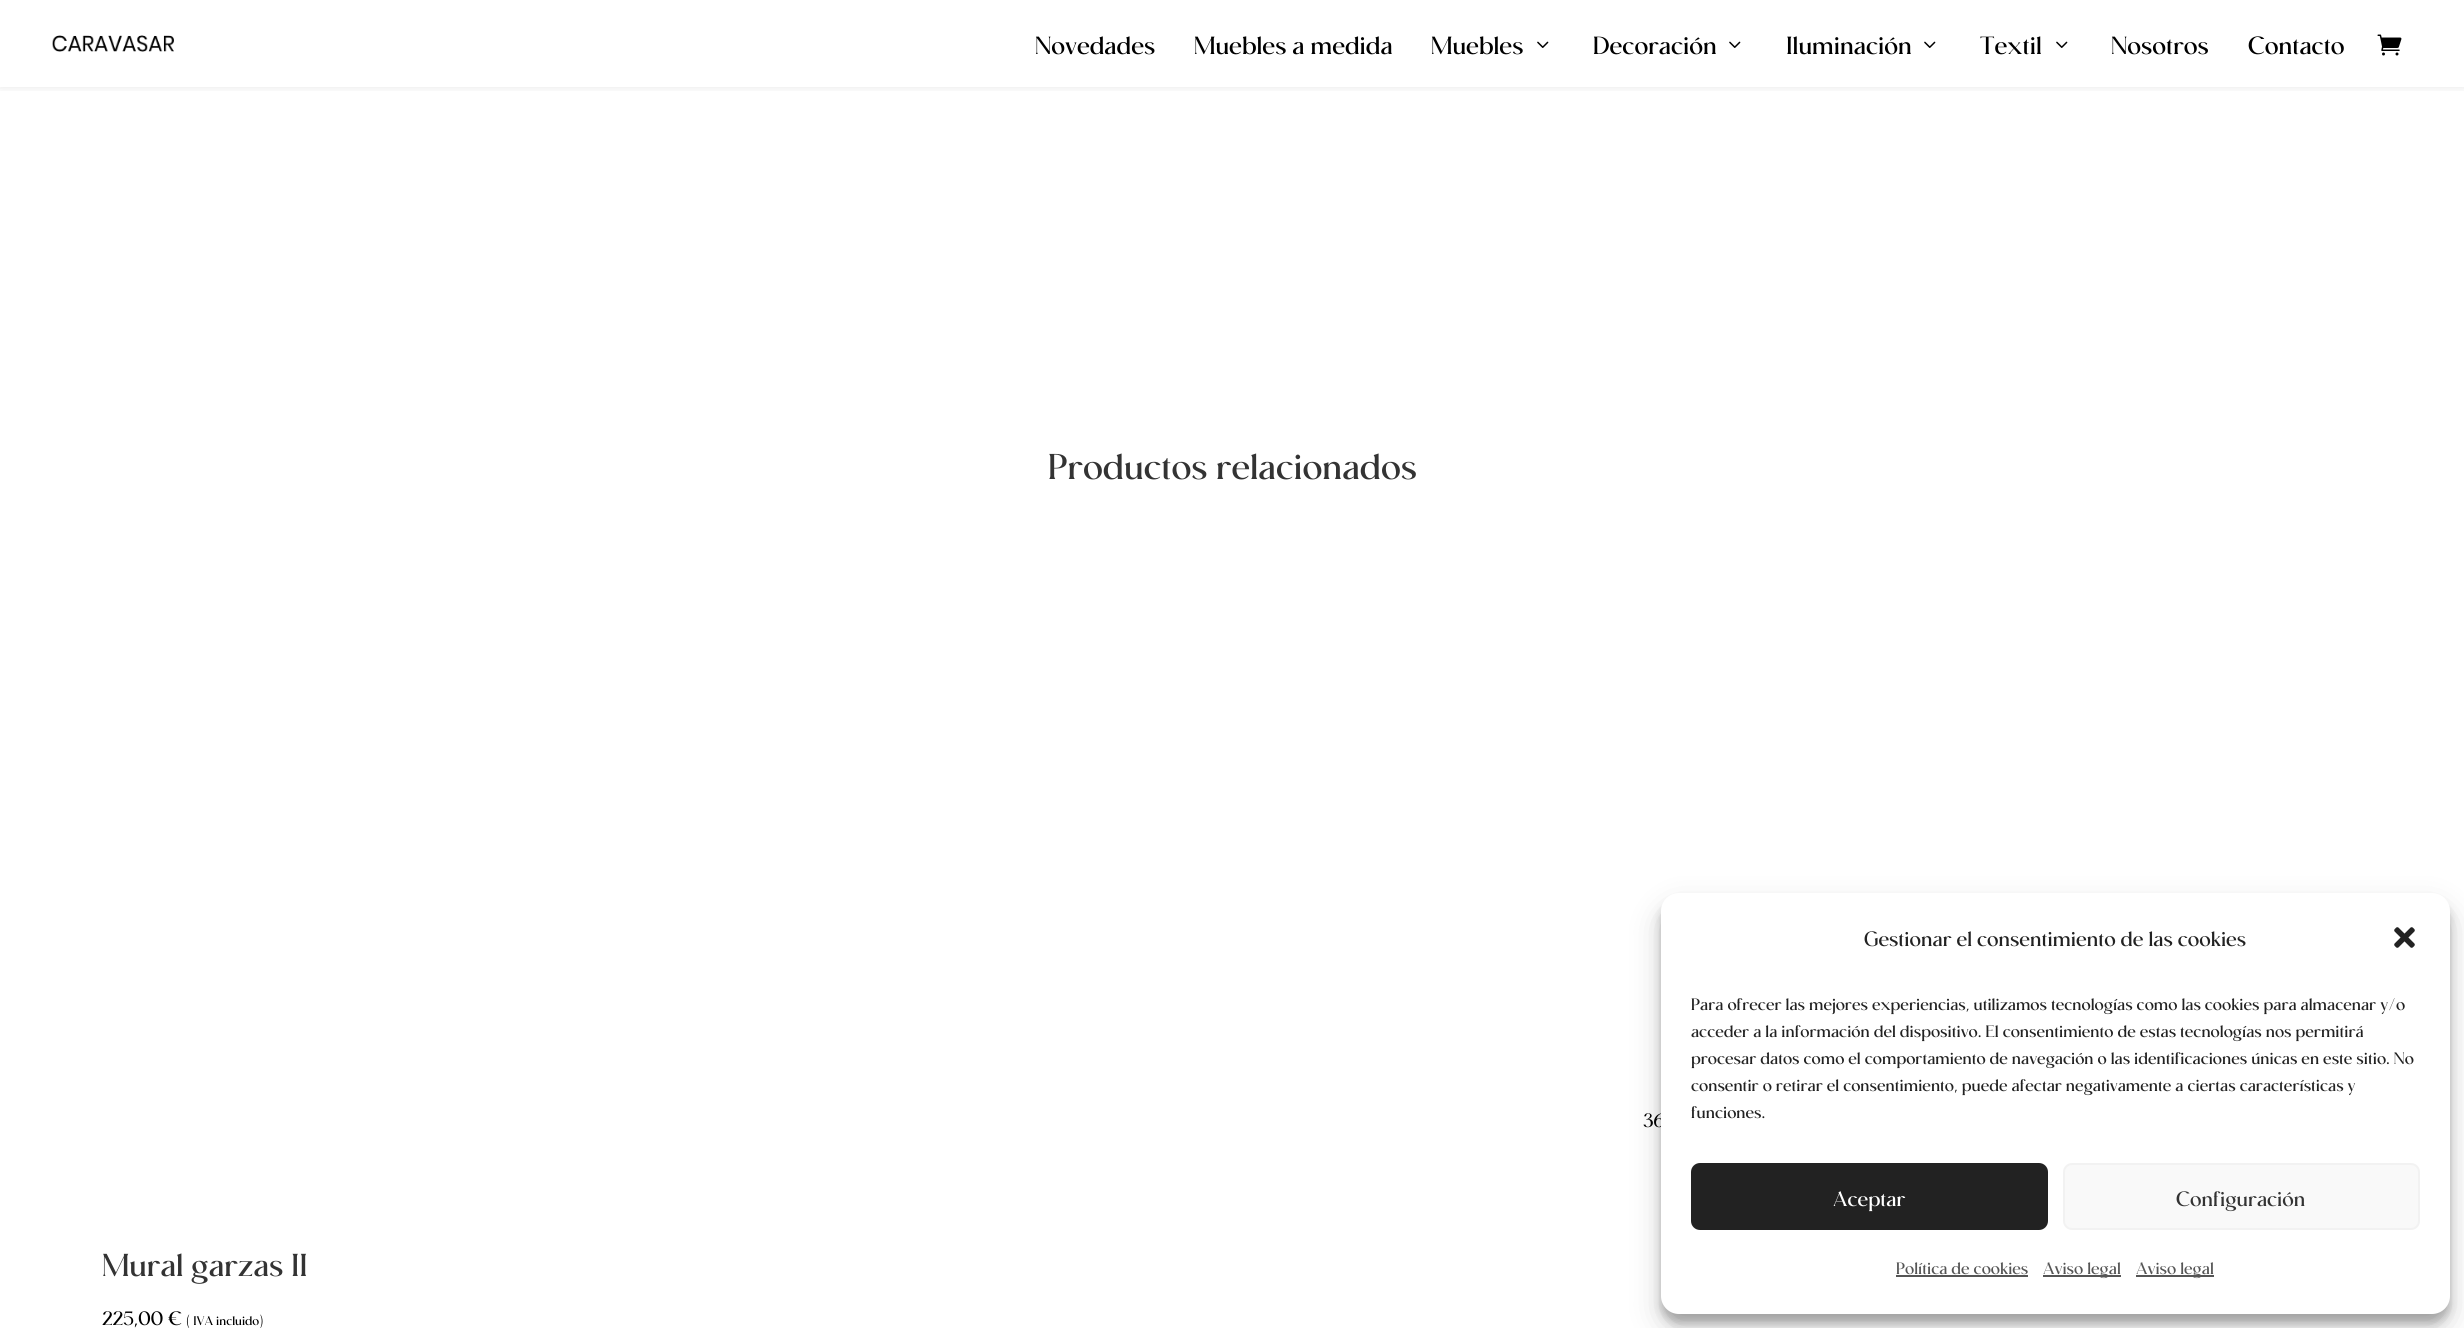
import math
import cairocffi as cairo

surface = cairo.ImageSurface(cairo.FORMAT_RGB24, 2464, 1328)
ctx = cairo.Context(surface)
options = cairo.FontOptions()
options.set_hint_metrics(cairo.HINT_METRICS_OFF)
options.set_hint_style(cairo.HINT_STYLE_NONE)
ctx.set_font_options(options)
ctx.set_miter_limit(4)


def rgb(r, g, b):
    ctx.set_source_rgb(r / 255, g / 255, b / 255)


def face(family, size, italic, bold):
    ctx.select_font_face(family, cairo.FONT_SLANT_ITALIC if italic else cairo.FONT_SLANT_NORMAL, cairo.FONT_WEIGHT_BOLD if bold else cairo.FONT_WEIGHT_NORMAL)
    ctx.set_font_size(size)


def label(x, y, s):
    ctx.move_to(x, y)
    ctx.show_text(s)


def rect(x, y, w, h):
    ctx.rectangle(x, y, w, h)
    ctx.fill()


def rrect(x, y, w, h, r):
    ctx.new_sub_path()
    for i, (u, v) in enumerate([(x + w - r, y + h - r), (x + r, y + h - r), (x + r, y + r), (x + w - r, y + r)]):
        ctx.arc(u, v, r, i * math.pi / 2, (i + 1) * math.pi / 2)
    ctx.close_path()


def soft_shadow(x, y, w, h, r, blur, alpha):
    ctx.push_group_with_content(cairo.CONTENT_ALPHA)
    ctx.set_operator(cairo.OPERATOR_SOURCE)
    for i in range(15, -16, -2):
        e = blur * i / 6
        if min(w, h) + 2 * e > 0:
            ctx.set_source_rgba(0, 0, 0, alpha * math.erfc((i - 1) / 8.5) / 2)
            rrect(x - e, y - e, w + 2 * e, h + 2 * e, max(0, min(r + e + blur * .6, min(w, h) / 2 + e)))
            ctx.fill()
    ctx.mask(ctx.pop_group())


def image(path, x, y, w, h):
    ctx.save()
    ctx.set_source_surface(cairo.ImageSurface.create_from_png(path), x, y)
    ctx.rectangle(x, y, w, h)
    ctx.fill()
    ctx.restore()


rgb(255, 255, 255)
ctx.paint()
ctx.save()
ctx.rectangle(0, 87, 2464, 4)
ctx.clip()
rgb(0, 0, 0)
soft_shadow(0, 0, 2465, 87, 0, 5, 0.1)
ctx.restore()
image('image0.png', 52, 35, 122, 17)
face('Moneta', 27, 0, 1)
rgb(0, 0, 0)
label(1035, 54, 'Novedades')
label(1194, 54, 'Muebles a medida')
label(1431, 54, 'Muebles')
image('image1.png', 1537, 41, 12, 7)
label(1593, 54, 'Decoración')
image('image1.png', 1729, 41, 12, 7)
label(1786, 54, 'Iluminación')
image('image1.png', 1924, 41, 12, 7)
label(1980, 54, 'Textil')
image('image1.png', 2056, 41, 12, 7)
label(2111, 54, 'Nosotros')
label(2248, 54, 'Contacto')
image('image2.png', 2377, 34, 25, 22)
face('Moneta', 39, 0, 1)
rgb(51, 51, 51)
label(1048, 479, 'Productos relacionados')
face('Moneta', 21, 0, 1)
rgb(0, 0, 0)
label(1643, 1127, '36')
face('Moneta', 34.5, 0, 1)
rgb(51, 51, 51)
label(102, 1276, 'Mural garzas II')
face('Moneta', 21, 0, 1)
rgb(0, 0, 0)
label(102, 1325, '225,00 €')
face('Moneta', 13.5, 0, 1)
label(186, 1325, '( IVA incluido)')
rgb(0, 0, 0)
soft_shadow(1661, 902, 789, 421, 18, 4.5, 0.23)
soft_shadow(1661, 908, 789, 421, 18, 15, 0.19)
rgb(255, 255, 255)
rrect(1661, 893, 789, 421, 18)
ctx.fill()
face('Moneta', 22.5, 0, 1)
rgb(34, 34, 34)
label(1864, 946, 'Gestionar el consentimiento de las cookies')
image('image3.png', 2394, 927, 21, 21)
face('Moneta', 18, 0, 1)
label(1691, 1010, 'Para ofrecer las mejores experiencias, utilizamos tecnologías como las cookies para almacenar y/o')
label(1691, 1037, 'acceder a la información del dispositivo. El consentimiento de estas tecnologías nos permitirá')
label(1691, 1064, 'procesar datos como el comportamiento de navegación o las identificaciones únicas en este sitio. No')
label(1691, 1091, 'consentir o retirar el consentimiento, puede afectar negativamente a ciertas características y')
label(1691, 1118, 'funciones.')
rrect(1692, 1164, 355, 65, 8)
ctx.fill_preserve()
ctx.stroke()
face('Moneta', 22.5, 0, 1)
rgb(255, 255, 255)
label(1833, 1206, 'Aceptar')
rgb(249, 249, 249)
rrect(2064, 1164, 355, 65, 8)
ctx.fill_preserve()
rgb(242, 242, 242)
ctx.stroke()
rgb(51, 51, 51)
label(2176, 1206, 'Configuración')
face('Moneta', 18, 0, 1)
rgb(85, 85, 85)
label(1896, 1274, 'Política de cookies')
rect(1896, 1275, 132, 2)
rect(2043, 1275, 78, 2)
label(2043, 1274, 'Aviso legal')
rect(2136, 1275, 78, 2)
label(2136, 1274, 'Aviso legal')
surface.write_to_png('render.png')
